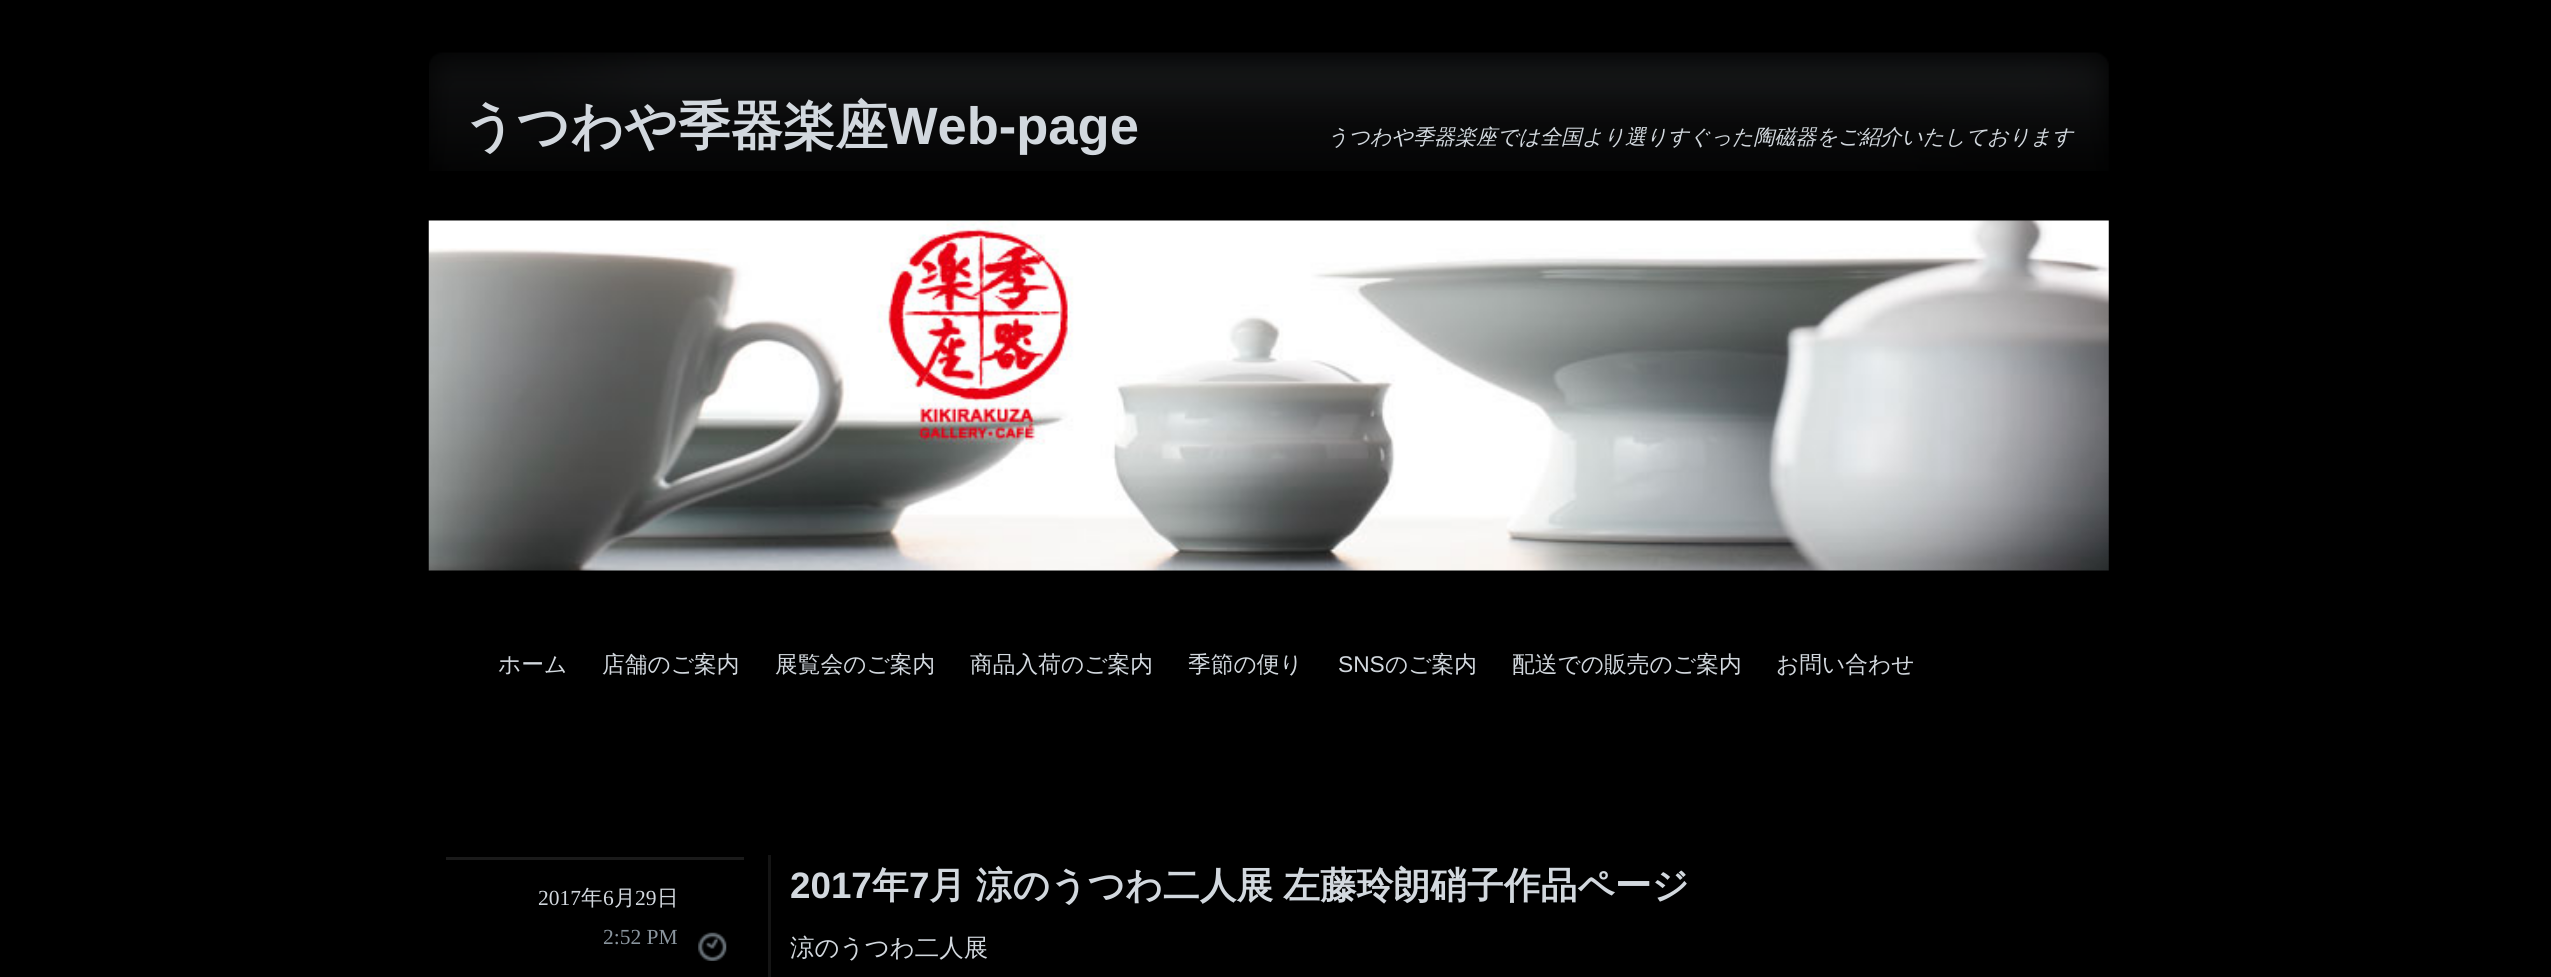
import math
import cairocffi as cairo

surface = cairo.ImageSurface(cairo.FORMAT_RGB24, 2551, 977)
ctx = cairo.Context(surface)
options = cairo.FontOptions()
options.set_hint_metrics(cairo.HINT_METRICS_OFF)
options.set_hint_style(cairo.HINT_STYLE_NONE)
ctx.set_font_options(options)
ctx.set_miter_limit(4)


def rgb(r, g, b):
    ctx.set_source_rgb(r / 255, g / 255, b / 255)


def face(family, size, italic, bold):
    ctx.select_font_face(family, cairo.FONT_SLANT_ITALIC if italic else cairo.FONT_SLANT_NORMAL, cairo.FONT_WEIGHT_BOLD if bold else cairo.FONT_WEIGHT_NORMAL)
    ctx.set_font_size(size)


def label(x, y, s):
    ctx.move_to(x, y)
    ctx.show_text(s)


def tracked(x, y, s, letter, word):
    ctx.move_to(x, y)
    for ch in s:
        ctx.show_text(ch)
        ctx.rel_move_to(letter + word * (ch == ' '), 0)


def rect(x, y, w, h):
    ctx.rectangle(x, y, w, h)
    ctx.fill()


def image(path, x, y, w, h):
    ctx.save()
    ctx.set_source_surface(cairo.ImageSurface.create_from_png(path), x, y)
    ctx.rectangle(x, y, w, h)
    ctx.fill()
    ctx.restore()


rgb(0, 0, 0)
ctx.paint()
image('image0.png', 429, 52, 1680, 119)
face('WenQuanYi Zen Hei', 52.5, 0, 1)
rgb(210, 216, 222)
label(463, 144, 'うつわや季器楽座')
face('Liberation Sans', 52.5, 0, 1)
label(888, 144, 'Web-page')
face('WenQuanYi Zen Hei Medium', 21, 1, 0)
label(1327, 144, 'うつわや季器楽座では全国より選りすぐった陶磁器をご紹介いたしております')
image('image1.png', 428, 220, 1681, 351)
face('WenQuanYi Zen Hei Medium', 22.75, 0, 0)
label(498, 672, 'ホーム')
label(602, 672, '店舗のご案内')
label(775, 672, '展覧会のご案内')
label(970, 672, '商品入荷のご案内')
label(1188, 672, '季節の便り')
face('Liberation Sans', 22.75, 0, 0)
label(1338, 672, 'SNS')
face('WenQuanYi Zen Hei Medium', 22.75, 0, 0)
label(1385, 672, 'のご案内')
label(1512, 672, '配送での販売のご案内')
label(1776, 672, 'お問い合わせ')
rgb(20, 20, 20)
rect(768, 855, 3, 122)
rgb(26, 26, 26)
rect(446, 857, 298, 3)
image('image2.png', 698, 932, 29, 29)
face('Liberation Serif', 21.5, 0, 0)
rgb(210, 216, 222)
label(538, 905, '2017')
face('WenQuanYi Zen Hei Medium', 21.5, 0, 0)
label(581, 905, '年')
face('Liberation Serif', 21.5, 0, 0)
label(603, 905, '6')
face('WenQuanYi Zen Hei Medium', 21.5, 0, 0)
label(614, 905, '月')
face('Liberation Serif', 21.5, 0, 0)
label(635, 905, '29')
face('WenQuanYi Zen Hei Medium', 21.5, 0, 0)
label(657, 905, '日')
face('Liberation Serif', 21.5, 0, 0)
rgb(138, 149, 158)
label(603, 944, '2:52 PM')
face('Liberation Sans', 36.75, 0, 1)
rgb(210, 216, 222)
label(790, 898, '2017')
face('WenQuanYi Zen Hei', 36.75, 0, 1)
label(872, 898, '年')
face('Liberation Sans', 36.75, 0, 1)
label(909, 898, '7')
face('WenQuanYi Zen Hei', 36.75, 0, 1)
tracked(929, 898, '月 涼のうつわ二人展 左藤玲朗硝子作品ページ', 0, -1)
face('WenQuanYi Zen Hei Medium', 24.5, 0, 0)
label(790, 956, '涼のうつわ二人展')
surface.write_to_png('render.png')
